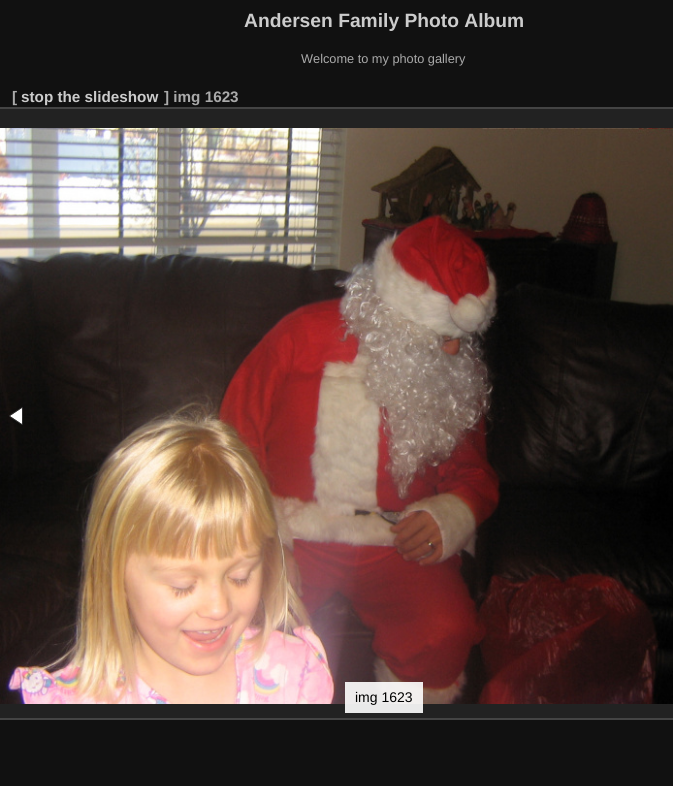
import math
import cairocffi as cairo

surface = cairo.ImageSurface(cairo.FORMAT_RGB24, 673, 786)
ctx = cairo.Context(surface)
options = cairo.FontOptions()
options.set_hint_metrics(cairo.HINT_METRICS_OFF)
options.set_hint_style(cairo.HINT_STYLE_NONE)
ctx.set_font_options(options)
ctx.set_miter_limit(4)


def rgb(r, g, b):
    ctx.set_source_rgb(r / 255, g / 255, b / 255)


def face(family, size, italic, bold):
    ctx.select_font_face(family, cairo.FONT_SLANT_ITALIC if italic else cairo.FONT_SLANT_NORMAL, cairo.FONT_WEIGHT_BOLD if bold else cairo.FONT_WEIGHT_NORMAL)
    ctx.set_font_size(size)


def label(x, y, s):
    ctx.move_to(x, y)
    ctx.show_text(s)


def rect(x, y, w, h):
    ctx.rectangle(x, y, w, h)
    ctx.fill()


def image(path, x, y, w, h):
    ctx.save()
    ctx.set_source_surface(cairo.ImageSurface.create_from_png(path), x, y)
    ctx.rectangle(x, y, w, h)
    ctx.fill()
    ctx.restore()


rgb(17, 17, 17)
ctx.paint()
face('Liberation Sans', 19.25, 0, 1)
rgb(204, 204, 204)
label(244, 27, 'Andersen Family Photo Album')
face('Liberation Sans', 12.75, 0, 0)
rgb(170, 170, 170)
label(301, 63, 'Welcome to my photo gallery')
rgb(68, 68, 68)
rect(0, 107, 673, 2)
face('Liberation Sans', 15.25, 0, 1)
rgb(170, 170, 170)
label(12, 102, '[')
rgb(204, 204, 204)
label(21, 102, 'stop the slideshow')
rgb(170, 170, 170)
label(164, 102, '] img 1623')
rgb(34, 34, 34)
rect(0, 109, 673, 609)
rgb(68, 68, 68)
rect(0, 718, 673, 2)
image('image1.png', 0, 128, 673, 576)
image('image0.png', 9, 407, 14, 18)
ctx.set_source_rgba(1, 1, 1, 0.9)
rect(345, 682, 78, 31)
face('Liberation Sans', 14, 0, 0)
rgb(0, 0, 0)
label(355, 702, 'img 1623')
surface.write_to_png('render.png')
